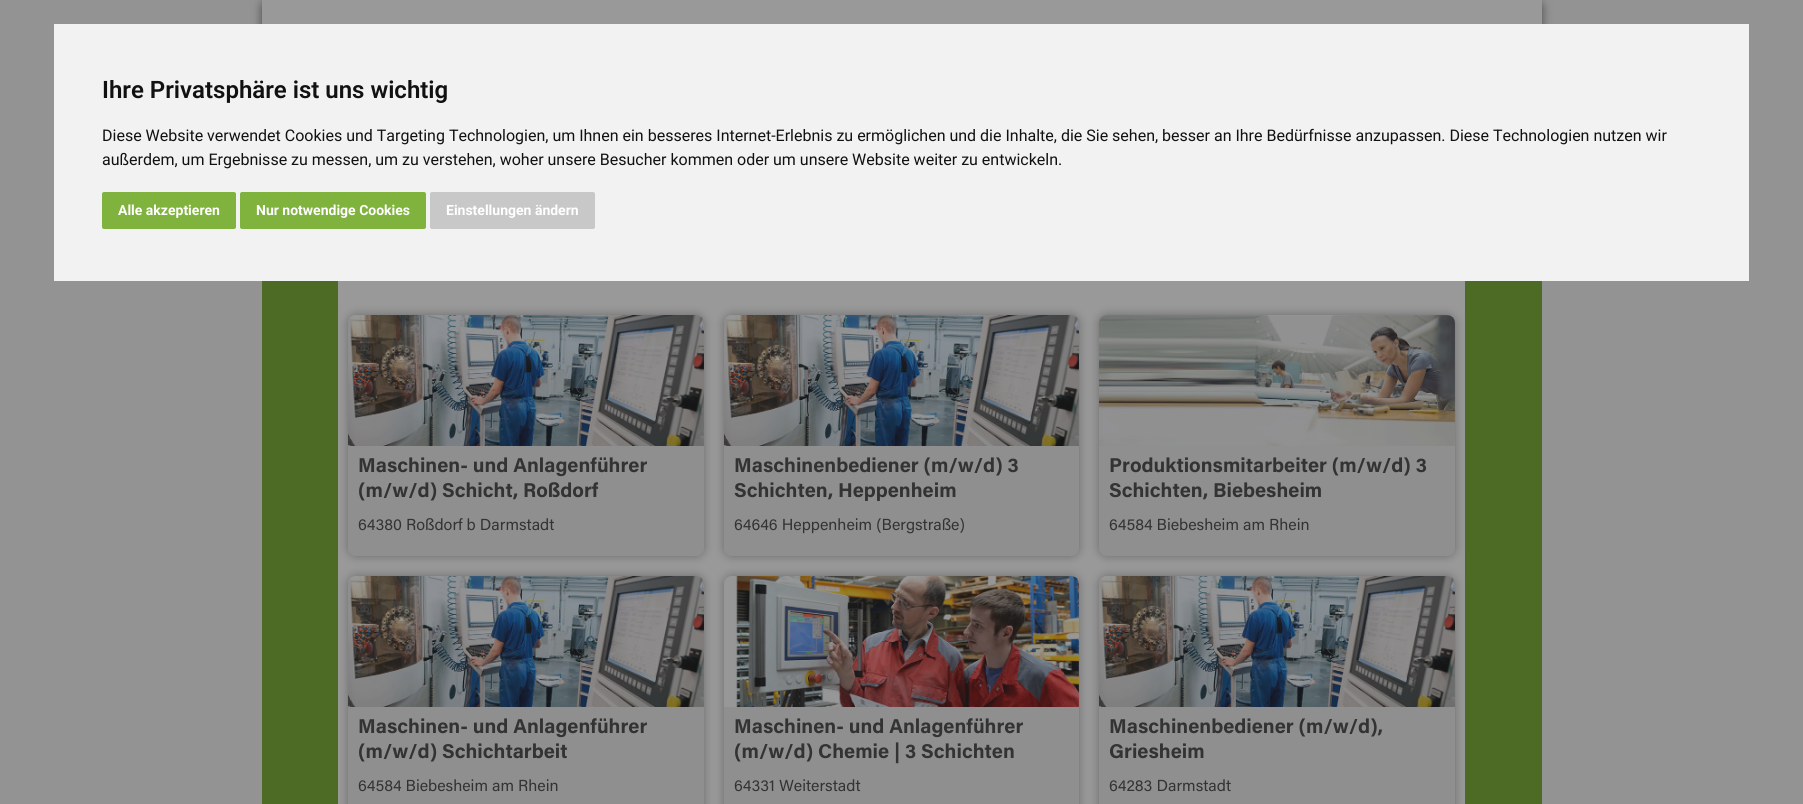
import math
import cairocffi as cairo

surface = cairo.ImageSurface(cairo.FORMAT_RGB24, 1803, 804)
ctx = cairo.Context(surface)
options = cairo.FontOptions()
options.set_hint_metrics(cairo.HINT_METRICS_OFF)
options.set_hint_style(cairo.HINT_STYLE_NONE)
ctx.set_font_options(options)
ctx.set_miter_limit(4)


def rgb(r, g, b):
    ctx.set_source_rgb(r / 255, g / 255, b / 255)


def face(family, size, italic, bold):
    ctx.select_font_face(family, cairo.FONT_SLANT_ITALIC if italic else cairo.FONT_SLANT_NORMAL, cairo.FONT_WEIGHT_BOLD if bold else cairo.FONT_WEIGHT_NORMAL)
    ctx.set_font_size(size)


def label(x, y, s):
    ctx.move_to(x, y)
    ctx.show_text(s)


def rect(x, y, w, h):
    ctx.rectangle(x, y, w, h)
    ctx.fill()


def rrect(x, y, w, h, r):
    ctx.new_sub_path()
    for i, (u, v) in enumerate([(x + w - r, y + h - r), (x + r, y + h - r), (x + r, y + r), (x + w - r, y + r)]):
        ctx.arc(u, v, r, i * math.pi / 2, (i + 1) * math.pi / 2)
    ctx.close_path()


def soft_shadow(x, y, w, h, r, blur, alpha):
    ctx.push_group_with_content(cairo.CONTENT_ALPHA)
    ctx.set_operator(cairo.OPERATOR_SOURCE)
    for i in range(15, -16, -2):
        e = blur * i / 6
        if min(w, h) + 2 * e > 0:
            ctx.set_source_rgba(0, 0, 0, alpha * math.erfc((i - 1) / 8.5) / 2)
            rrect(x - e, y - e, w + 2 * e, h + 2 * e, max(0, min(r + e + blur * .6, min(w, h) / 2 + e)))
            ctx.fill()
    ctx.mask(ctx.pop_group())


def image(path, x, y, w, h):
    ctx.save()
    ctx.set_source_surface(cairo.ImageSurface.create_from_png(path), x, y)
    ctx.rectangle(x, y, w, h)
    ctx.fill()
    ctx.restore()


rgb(147, 147, 147)
ctx.paint()
rgb(0, 0, 0)
soft_shadow(262, 0, 1280, 125, 8, 5, 0.5)
rgb(242, 242, 242)
rect(54, 24, 1695, 257)
face('Roboto SemiBold', 24, 0, 0)
rgb(17, 17, 17)
label(102, 98, 'Ihre Privatsphäre ist uns wichtig')
face('Roboto', 16, 0, 0)
label(102, 141, 'Diese Website verwendet Cookies und Targeting Technologien, um Ihnen ein besseres Internet-Erlebnis zu ermöglichen und die Inhalte, die Sie sehen, besser an Ihre Bedürfnisse anzupassen. Diese Technologien nutzen wir')
label(102, 165, 'außerdem, um Ergebnisse zu messen, um zu verstehen, woher unsere Besucher kommen oder um unsere Website weiter zu entwickeln.')
rgb(128, 179, 61)
rrect(102, 192, 134, 37, 2)
ctx.fill()
face('Roboto', 14, 0, 1)
rgb(255, 255, 255)
label(118, 215, 'Alle akzeptieren')
rgb(128, 179, 61)
rrect(240, 192, 186, 37, 2)
ctx.fill()
rgb(255, 255, 255)
label(256, 215, 'Nur notwendige Cookies')
rgb(200, 200, 200)
rrect(430, 192, 165, 37, 2)
ctx.fill()
rgb(255, 255, 255)
label(446, 215, 'Einstellungen ändern')
rgb(77, 107, 37)
rect(262, 281, 1280, 523)
rgb(153, 153, 153)
rect(262, 0, 1280, 24)
rect(338, 281, 1127, 523)
rgb(0, 0, 0)
soft_shadow(348, 315, 356, 241, 8, 5, 0.3)
rgb(143, 143, 143)
rrect(348, 315, 356, 241, 8)
ctx.fill()
image('image0.png', 348, 315, 356, 131)
face('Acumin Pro', 20, 0, 1)
rgb(51, 51, 51)
label(358, 472, 'Maschinen- und Anlagenführer')
label(358, 497, '(m/w/d) Schicht, Roßdorf')
face('Acumin Pro', 16, 0, 0)
label(358, 530, '64380 Roßdorf b Darmstadt')
rgb(0, 0, 0)
soft_shadow(724, 315, 355, 241, 8, 5, 0.3)
rgb(143, 143, 143)
rrect(724, 315, 355, 241, 8)
ctx.fill()
image('image1.png', 724, 315, 355, 131)
face('Acumin Pro', 20, 0, 1)
rgb(51, 51, 51)
label(734, 472, 'Maschinenbediener (m/w/d) 3')
label(734, 497, 'Schichten, Heppenheim')
face('Acumin Pro', 16, 0, 0)
label(734, 530, '64646 Heppenheim (Bergstraße)')
rgb(0, 0, 0)
soft_shadow(1099, 315, 356, 241, 8, 5, 0.3)
rgb(143, 143, 143)
rrect(1099, 315, 356, 241, 8)
ctx.fill()
image('image2.png', 1099, 315, 356, 131)
face('Acumin Pro', 20, 0, 1)
rgb(51, 51, 51)
label(1109, 472, 'Produktionsmitarbeiter (m/w/d) 3')
label(1109, 497, 'Schichten, Biebesheim')
face('Acumin Pro', 16, 0, 0)
label(1109, 530, '64584 Biebesheim am Rhein')
rgb(0, 0, 0)
soft_shadow(348, 576, 356, 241, 8, 5, 0.3)
rgb(143, 143, 143)
rrect(348, 576, 356, 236, 8)
ctx.fill()
image('image0.png', 348, 576, 356, 131)
face('Acumin Pro', 20, 0, 1)
rgb(51, 51, 51)
label(358, 733, 'Maschinen- und Anlagenführer')
label(358, 758, '(m/w/d) Schichtarbeit')
face('Acumin Pro', 16, 0, 0)
label(358, 791, '64584 Biebesheim am Rhein')
rgb(0, 0, 0)
soft_shadow(724, 576, 355, 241, 8, 5, 0.3)
rgb(143, 143, 143)
rrect(724, 576, 355, 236, 8)
ctx.fill()
image('image3.png', 724, 576, 355, 131)
face('Acumin Pro', 20, 0, 1)
rgb(51, 51, 51)
label(734, 733, 'Maschinen- und Anlagenführer')
label(734, 758, '(m/w/d) Chemie | 3 Schichten')
face('Acumin Pro', 16, 0, 0)
label(734, 791, '64331 Weiterstadt')
rgb(0, 0, 0)
soft_shadow(1099, 576, 356, 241, 8, 5, 0.3)
rgb(143, 143, 143)
rrect(1099, 576, 356, 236, 8)
ctx.fill()
image('image0.png', 1099, 576, 356, 131)
face('Acumin Pro', 20, 0, 1)
rgb(51, 51, 51)
label(1109, 733, 'Maschinenbediener (m/w/d),')
label(1109, 758, 'Griesheim')
face('Acumin Pro', 16, 0, 0)
label(1109, 791, '64283 Darmstadt')
surface.write_to_png('render.png')
